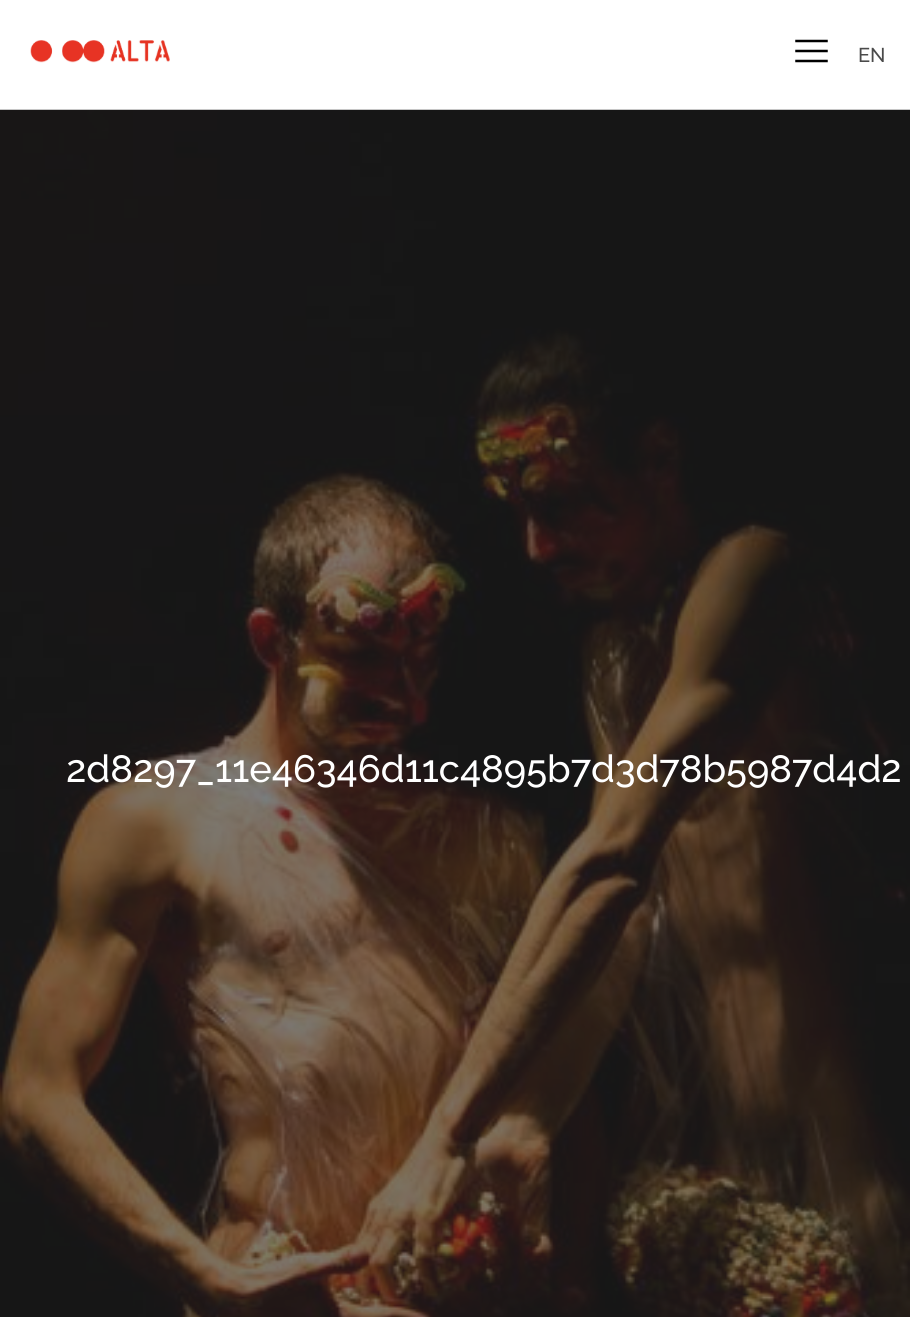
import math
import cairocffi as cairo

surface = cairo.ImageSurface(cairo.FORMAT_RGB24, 910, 1317)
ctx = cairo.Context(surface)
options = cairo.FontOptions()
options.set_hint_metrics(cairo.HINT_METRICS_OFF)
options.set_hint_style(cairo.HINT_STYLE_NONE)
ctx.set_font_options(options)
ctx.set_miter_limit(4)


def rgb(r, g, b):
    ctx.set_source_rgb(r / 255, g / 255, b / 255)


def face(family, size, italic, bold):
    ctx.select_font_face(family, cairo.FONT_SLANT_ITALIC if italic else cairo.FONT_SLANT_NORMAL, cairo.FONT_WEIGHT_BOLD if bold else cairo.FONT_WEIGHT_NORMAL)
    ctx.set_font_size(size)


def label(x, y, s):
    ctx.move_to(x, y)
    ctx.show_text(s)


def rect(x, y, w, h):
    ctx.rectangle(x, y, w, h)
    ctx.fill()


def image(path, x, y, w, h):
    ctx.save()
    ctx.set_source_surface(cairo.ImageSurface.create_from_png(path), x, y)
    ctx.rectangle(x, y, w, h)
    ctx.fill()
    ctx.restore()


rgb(255, 255, 255)
ctx.paint()
rgb(198, 198, 198)
rect(0, 109, 910, 1)
image('image0.png', 30, 40, 140, 23)
ctx.new_path()
ctx.move_to(796.5, 41)
ctx.line_to(826.5, 41)
ctx.move_to(796.5, 51)
ctx.line_to(826.5, 51)
ctx.move_to(796.5, 61)
ctx.line_to(826.5, 61)
rgb(0, 0, 0)
ctx.set_line_width(2.5)
ctx.set_line_cap(cairo.LINE_CAP_SQUARE)
ctx.stroke()
face('Raleway Medium', 20, 0, 0)
rgb(74, 74, 74)
label(858, 62, 'EN')
image('image1.png', 0, 110, 910, 1207)
face('Raleway Medium', 38, 0, 0)
rgb(255, 255, 255)
label(66, 782, '2d8297_11e46346d11c4895b7d3d78b5987d4d2')
surface.write_to_png('render.png')
